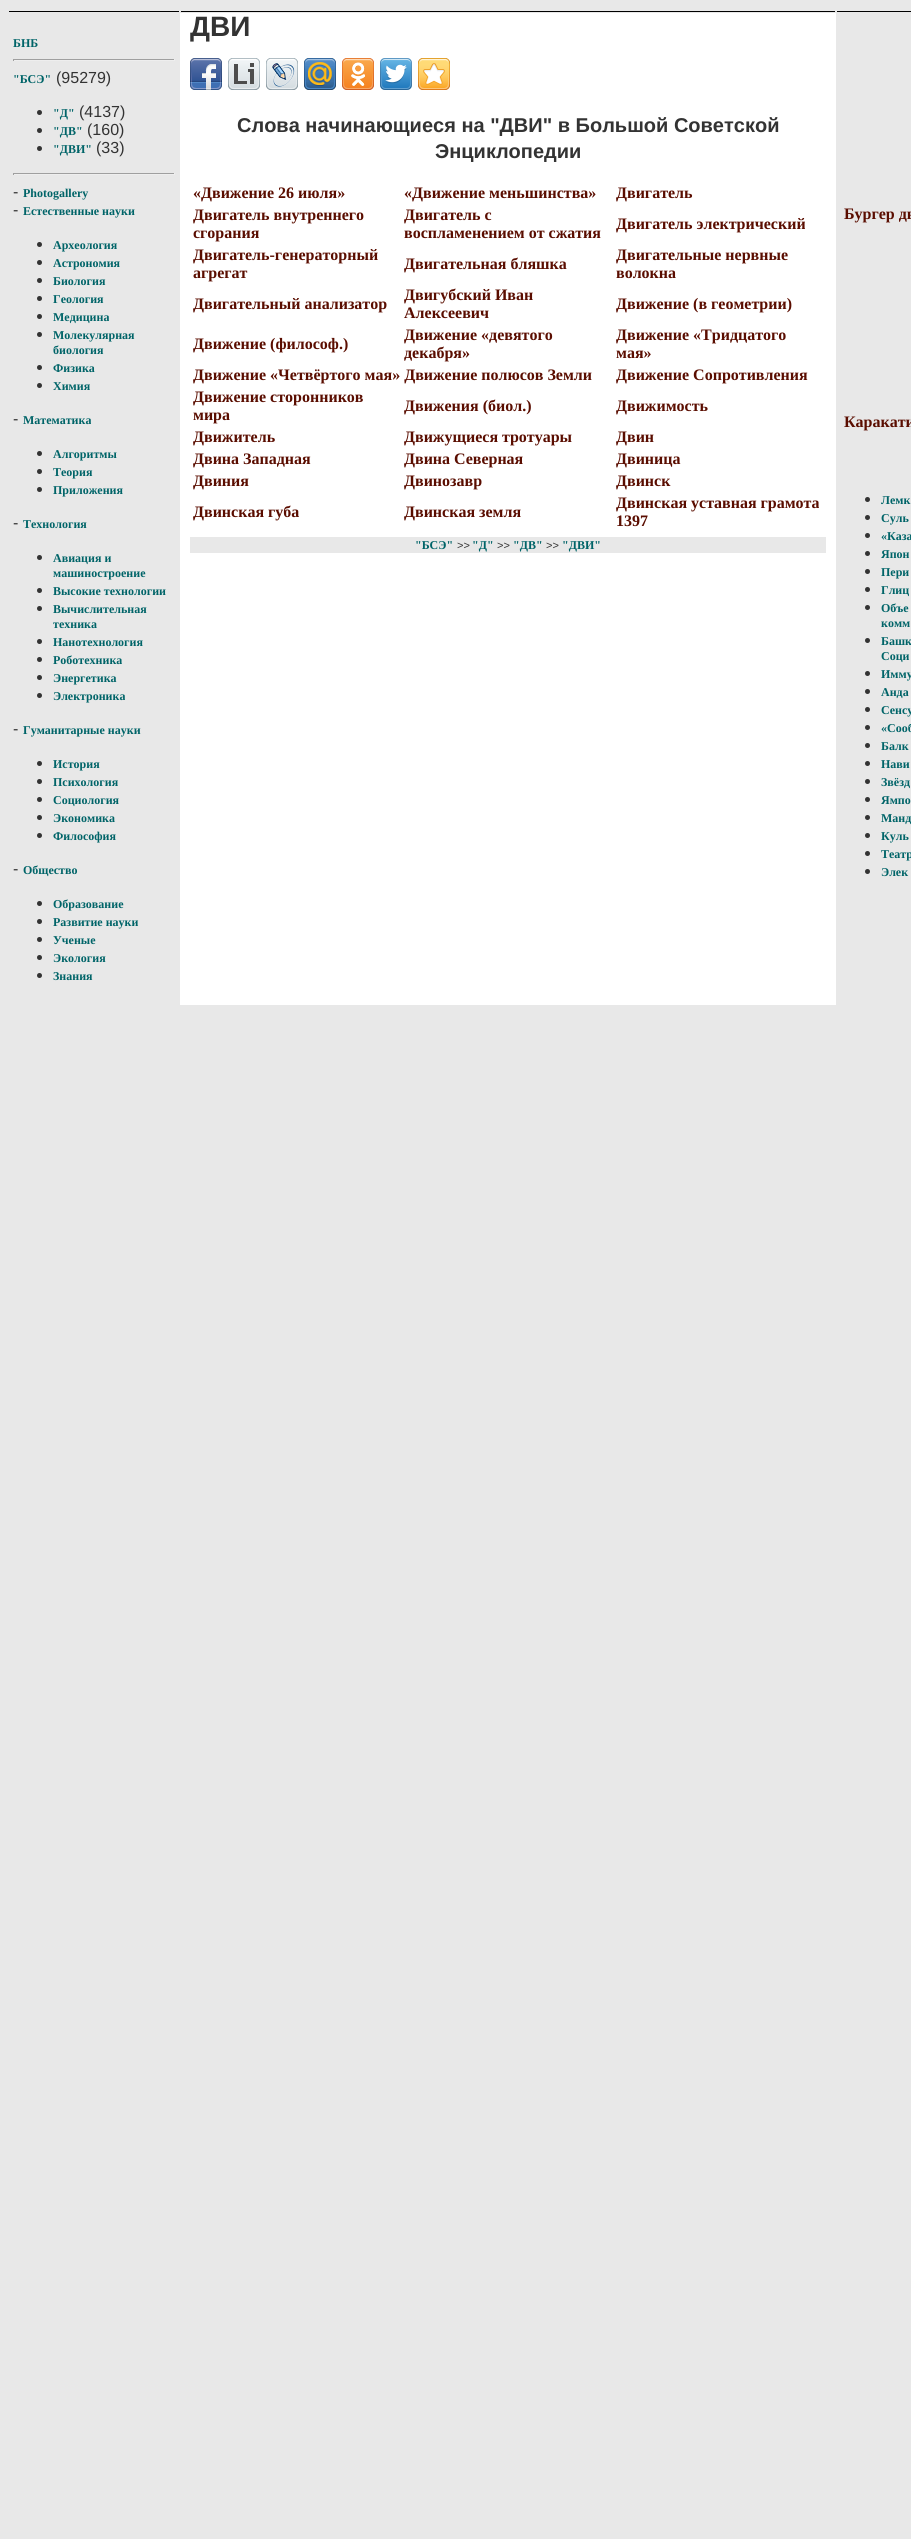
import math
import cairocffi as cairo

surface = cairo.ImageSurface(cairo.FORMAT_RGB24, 911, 2539)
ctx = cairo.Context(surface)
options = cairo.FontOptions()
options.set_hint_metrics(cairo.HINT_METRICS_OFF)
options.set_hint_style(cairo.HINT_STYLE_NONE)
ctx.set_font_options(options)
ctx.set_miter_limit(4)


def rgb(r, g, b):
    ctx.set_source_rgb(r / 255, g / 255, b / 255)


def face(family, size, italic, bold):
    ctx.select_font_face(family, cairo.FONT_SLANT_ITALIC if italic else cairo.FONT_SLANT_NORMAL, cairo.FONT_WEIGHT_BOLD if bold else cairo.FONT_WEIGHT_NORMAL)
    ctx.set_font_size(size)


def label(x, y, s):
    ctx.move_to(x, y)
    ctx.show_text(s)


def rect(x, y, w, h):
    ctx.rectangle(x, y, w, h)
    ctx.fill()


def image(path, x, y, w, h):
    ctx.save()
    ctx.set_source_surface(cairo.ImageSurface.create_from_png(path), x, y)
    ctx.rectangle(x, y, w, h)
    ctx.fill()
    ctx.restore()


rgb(232, 232, 232)
ctx.paint()
rgb(0, 0, 0)
rect(9, 11, 170, 1)
rect(181, 11, 654, 1)
rect(837, 11, 74, 1)
face('Liberation Serif', 12, 0, 1)
rgb(0, 100, 104)
label(13, 47, 'БНБ')
rgb(159, 159, 159)
rect(13, 59, 162, 1)
rgb(238, 238, 238)
rect(174, 59, 1, 2)
rect(13, 60, 162, 1)
rgb(159, 159, 159)
rect(13, 59, 1, 2)
rgb(0, 100, 104)
label(13, 83, '"БСЭ"')
face('Liberation Sans', 16, 0, 0)
rgb(51, 51, 51)
label(56, 83, '(95279)')
ctx.new_path()
ctx.arc(39.5, 112.5, 2.5, 0, 2 * math.pi)
ctx.fill()
face('Liberation Serif', 12, 0, 1)
rgb(0, 100, 104)
label(53, 117, '"Д"')
face('Liberation Sans', 16, 0, 0)
rgb(51, 51, 51)
label(79, 117, '(4137)')
ctx.new_path()
ctx.arc(39.5, 130.5, 2.5, 0, 2 * math.pi)
ctx.fill()
face('Liberation Serif', 12, 0, 1)
rgb(0, 100, 104)
label(53, 135, '"ДВ"')
face('Liberation Sans', 16, 0, 0)
rgb(51, 51, 51)
label(87, 135, '(160)')
ctx.new_path()
ctx.arc(39.5, 148.5, 2.5, 0, 2 * math.pi)
ctx.fill()
face('Liberation Serif', 12, 0, 1)
rgb(0, 100, 104)
label(53, 153, '"ДВИ"')
face('Liberation Sans', 16, 0, 0)
rgb(51, 51, 51)
label(96, 153, '(33)')
rgb(159, 159, 159)
rect(13, 173, 162, 1)
rgb(238, 238, 238)
rect(174, 173, 1, 2)
rect(13, 174, 162, 1)
rgb(159, 159, 159)
rect(13, 173, 1, 2)
rgb(51, 51, 51)
label(13, 197, '-')
face('Liberation Serif', 12, 0, 1)
rgb(0, 100, 104)
label(23, 197, 'Photogallery')
face('Liberation Sans', 16, 0, 0)
rgb(51, 51, 51)
label(13, 215, '-')
face('Liberation Serif', 12, 0, 1)
rgb(0, 100, 104)
label(23, 215, 'Естественные науки')
rgb(51, 51, 51)
ctx.new_path()
ctx.arc(39.5, 244.5, 2.5, 0, 2 * math.pi)
ctx.fill()
rgb(0, 100, 104)
label(53, 249, 'Археология')
rgb(51, 51, 51)
ctx.new_path()
ctx.arc(39.5, 262.5, 2.5, 0, 2 * math.pi)
ctx.fill()
rgb(0, 100, 104)
label(53, 267, 'Астрономия')
rgb(51, 51, 51)
ctx.new_path()
ctx.arc(39.5, 280.5, 2.5, 0, 2 * math.pi)
ctx.fill()
rgb(0, 100, 104)
label(53, 285, 'Биология')
rgb(51, 51, 51)
ctx.new_path()
ctx.arc(39.5, 298.5, 2.5, 0, 2 * math.pi)
ctx.fill()
rgb(0, 100, 104)
label(53, 303, 'Геология')
rgb(51, 51, 51)
ctx.new_path()
ctx.arc(39.5, 316.5, 2.5, 0, 2 * math.pi)
ctx.fill()
rgb(0, 100, 104)
label(53, 321, 'Медицина')
rgb(51, 51, 51)
ctx.new_path()
ctx.arc(39.5, 334.5, 2.5, 0, 2 * math.pi)
ctx.fill()
rgb(0, 100, 104)
label(53, 339, 'Молекулярная')
label(53, 354, 'биология')
rgb(51, 51, 51)
ctx.new_path()
ctx.arc(39.5, 367.5, 2.5, 0, 2 * math.pi)
ctx.fill()
rgb(0, 100, 104)
label(53, 372, 'Физика')
rgb(51, 51, 51)
ctx.new_path()
ctx.arc(39.5, 385.5, 2.5, 0, 2 * math.pi)
ctx.fill()
rgb(0, 100, 104)
label(53, 390, 'Химия')
face('Liberation Sans', 16, 0, 0)
rgb(51, 51, 51)
label(13, 424, '-')
face('Liberation Serif', 12, 0, 1)
rgb(0, 100, 104)
label(23, 424, 'Математика')
rgb(51, 51, 51)
ctx.new_path()
ctx.arc(39.5, 453.5, 2.5, 0, 2 * math.pi)
ctx.fill()
rgb(0, 100, 104)
label(53, 458, 'Алгоритмы')
rgb(51, 51, 51)
ctx.new_path()
ctx.arc(39.5, 471.5, 2.5, 0, 2 * math.pi)
ctx.fill()
rgb(0, 100, 104)
label(53, 476, 'Теория')
rgb(51, 51, 51)
ctx.new_path()
ctx.arc(39.5, 489.5, 2.5, 0, 2 * math.pi)
ctx.fill()
rgb(0, 100, 104)
label(53, 494, 'Приложения')
face('Liberation Sans', 16, 0, 0)
rgb(51, 51, 51)
label(13, 528, '-')
face('Liberation Serif', 12, 0, 1)
rgb(0, 100, 104)
label(23, 528, 'Технология')
rgb(51, 51, 51)
ctx.new_path()
ctx.arc(39.5, 557.5, 2.5, 0, 2 * math.pi)
ctx.fill()
rgb(0, 100, 104)
label(53, 562, 'Авиация и')
label(53, 577, 'машиностроение')
rgb(51, 51, 51)
ctx.new_path()
ctx.arc(39.5, 590.5, 2.5, 0, 2 * math.pi)
ctx.fill()
rgb(0, 100, 104)
label(53, 595, 'Высокие технологии')
rgb(51, 51, 51)
ctx.new_path()
ctx.arc(39.5, 608.5, 2.5, 0, 2 * math.pi)
ctx.fill()
rgb(0, 100, 104)
label(53, 613, 'Вычислительная')
label(53, 628, 'техника')
rgb(51, 51, 51)
ctx.new_path()
ctx.arc(39.5, 641.5, 2.5, 0, 2 * math.pi)
ctx.fill()
rgb(0, 100, 104)
label(53, 646, 'Нанотехнология')
rgb(51, 51, 51)
ctx.new_path()
ctx.arc(39.5, 659.5, 2.5, 0, 2 * math.pi)
ctx.fill()
rgb(0, 100, 104)
label(53, 664, 'Роботехника')
rgb(51, 51, 51)
ctx.new_path()
ctx.arc(39.5, 677.5, 2.5, 0, 2 * math.pi)
ctx.fill()
rgb(0, 100, 104)
label(53, 682, 'Энергетика')
rgb(51, 51, 51)
ctx.new_path()
ctx.arc(39.5, 695.5, 2.5, 0, 2 * math.pi)
ctx.fill()
rgb(0, 100, 104)
label(53, 700, 'Электроника')
face('Liberation Sans', 16, 0, 0)
rgb(51, 51, 51)
label(13, 734, '-')
face('Liberation Serif', 12, 0, 1)
rgb(0, 100, 104)
label(23, 734, 'Гуманитарные науки')
rgb(51, 51, 51)
ctx.new_path()
ctx.arc(39.5, 763.5, 2.5, 0, 2 * math.pi)
ctx.fill()
rgb(0, 100, 104)
label(53, 768, 'История')
rgb(51, 51, 51)
ctx.new_path()
ctx.arc(39.5, 781.5, 2.5, 0, 2 * math.pi)
ctx.fill()
rgb(0, 100, 104)
label(53, 786, 'Психология')
rgb(51, 51, 51)
ctx.new_path()
ctx.arc(39.5, 799.5, 2.5, 0, 2 * math.pi)
ctx.fill()
rgb(0, 100, 104)
label(53, 804, 'Социология')
rgb(51, 51, 51)
ctx.new_path()
ctx.arc(39.5, 817.5, 2.5, 0, 2 * math.pi)
ctx.fill()
rgb(0, 100, 104)
label(53, 822, 'Экономика')
rgb(51, 51, 51)
ctx.new_path()
ctx.arc(39.5, 835.5, 2.5, 0, 2 * math.pi)
ctx.fill()
rgb(0, 100, 104)
label(53, 840, 'Философия')
face('Liberation Sans', 16, 0, 0)
rgb(51, 51, 51)
label(13, 874, '-')
face('Liberation Serif', 12, 0, 1)
rgb(0, 100, 104)
label(23, 874, 'Общество')
rgb(51, 51, 51)
ctx.new_path()
ctx.arc(39.5, 903.5, 2.5, 0, 2 * math.pi)
ctx.fill()
rgb(0, 100, 104)
label(53, 908, 'Образование')
rgb(51, 51, 51)
ctx.new_path()
ctx.arc(39.5, 921.5, 2.5, 0, 2 * math.pi)
ctx.fill()
rgb(0, 100, 104)
label(53, 926, 'Развитие науки')
rgb(51, 51, 51)
ctx.new_path()
ctx.arc(39.5, 939.5, 2.5, 0, 2 * math.pi)
ctx.fill()
rgb(0, 100, 104)
label(53, 944, 'Ученые')
rgb(51, 51, 51)
ctx.new_path()
ctx.arc(39.5, 957.5, 2.5, 0, 2 * math.pi)
ctx.fill()
rgb(0, 100, 104)
label(53, 962, 'Экология')
rgb(51, 51, 51)
ctx.new_path()
ctx.arc(39.5, 975.5, 2.5, 0, 2 * math.pi)
ctx.fill()
rgb(0, 100, 104)
label(53, 980, 'Знания')
rgb(255, 255, 255)
rect(180, 13, 656, 992)
face('Liberation Sans', 28, 0, 1)
rgb(51, 51, 51)
label(190, 36, 'ДВИ')
image('image0.png', 190, 58, 32, 32)
image('image1.png', 228, 58, 32, 32)
image('image2.png', 266, 58, 32, 32)
image('image3.png', 304, 58, 32, 32)
image('image4.png', 342, 58, 32, 32)
image('image5.png', 380, 58, 32, 32)
image('image6.png', 418, 58, 32, 32)
face('Liberation Sans', 20, 0, 1)
label(237, 132, 'Слова начинающиеся на "ДВИ" в Большой Советской')
label(435, 158, 'Энциклопедии')
face('Liberation Serif', 16, 0, 1)
rgb(90, 13, 0)
label(193, 198, '«Движение 26 июля»')
label(404, 198, '«Движение меньшинства»')
label(616, 198, 'Двигатель')
label(193, 220, 'Двигатель внутреннего')
label(193, 238, 'сгорания')
label(404, 220, 'Двигатель с')
label(404, 238, 'воспламенением от сжатия')
label(616, 229, 'Двигатель электрический')
label(193, 260, 'Двигатель-генераторный')
label(193, 278, 'агрегат')
label(404, 269, 'Двигательная бляшка')
label(616, 260, 'Двигательные нервные')
label(616, 278, 'волокна')
label(193, 309, 'Двигательный анализатор')
label(404, 300, 'Двигубский Иван')
label(404, 318, 'Алексеевич')
label(616, 309, 'Движение (в геометрии)')
label(193, 349, 'Движение (философ.)')
label(404, 340, 'Движение «девятого')
label(404, 358, 'декабря»')
label(616, 340, 'Движение «Тридцатого')
label(616, 358, 'мая»')
label(193, 380, 'Движение «Четвёртого мая» Движение полюсов Земли')
label(616, 380, 'Движение Сопротивления')
label(193, 402, 'Движение сторонников')
label(193, 420, 'мира')
label(404, 411, 'Движения (биол.)')
label(616, 411, 'Движимость')
label(193, 442, 'Движитель')
label(404, 442, 'Движущиеся тротуары')
label(616, 442, 'Двин')
label(193, 464, 'Двина Западная')
label(404, 464, 'Двина Северная')
label(616, 464, 'Двиница')
label(193, 486, 'Двиния')
label(404, 486, 'Двинозавр')
label(616, 486, 'Двинск')
label(193, 517, 'Двинская губа')
label(404, 517, 'Двинская земля')
label(616, 508, 'Двинская уставная грамота')
label(616, 526, '1397')
rgb(232, 232, 232)
rect(190, 537, 636, 16)
face('Liberation Serif', 12, 0, 1)
rgb(0, 100, 104)
label(415, 549, '"БСЭ"')
face('Liberation Sans', 11, 0, 0)
rgb(51, 51, 51)
label(457, 549, '>>')
face('Liberation Serif', 12, 0, 1)
rgb(0, 100, 104)
label(472, 549, '"Д"')
face('Liberation Sans', 11, 0, 0)
rgb(51, 51, 51)
label(497, 549, '>>')
face('Liberation Serif', 12, 0, 1)
rgb(0, 100, 104)
label(513, 549, '"ДВ"')
face('Liberation Sans', 11, 0, 0)
rgb(51, 51, 51)
label(546, 549, '>>')
face('Liberation Serif', 12, 0, 1)
rgb(0, 100, 104)
label(562, 549, '"ДВИ"')
face('Liberation Serif', 16, 0, 1)
rgb(90, 13, 0)
label(844, 219, 'Бургер дв')
label(844, 427, 'Каракати')
rgb(51, 51, 51)
ctx.new_path()
ctx.arc(867.5, 499.5, 2.5, 0, 2 * math.pi)
ctx.fill()
face('Liberation Serif', 12, 0, 1)
rgb(0, 100, 104)
label(881, 504, 'Лемк')
rgb(51, 51, 51)
ctx.new_path()
ctx.arc(867.5, 517.5, 2.5, 0, 2 * math.pi)
ctx.fill()
rgb(0, 100, 104)
label(881, 522, 'Суль')
rgb(51, 51, 51)
ctx.new_path()
ctx.arc(867.5, 535.5, 2.5, 0, 2 * math.pi)
ctx.fill()
rgb(0, 100, 104)
label(881, 540, '«Каза')
rgb(51, 51, 51)
ctx.new_path()
ctx.arc(867.5, 553.5, 2.5, 0, 2 * math.pi)
ctx.fill()
rgb(0, 100, 104)
label(881, 558, 'Япон')
rgb(51, 51, 51)
ctx.new_path()
ctx.arc(867.5, 571.5, 2.5, 0, 2 * math.pi)
ctx.fill()
rgb(0, 100, 104)
label(881, 576, 'Пери')
rgb(51, 51, 51)
ctx.new_path()
ctx.arc(867.5, 589.5, 2.5, 0, 2 * math.pi)
ctx.fill()
rgb(0, 100, 104)
label(881, 594, 'Глиц')
rgb(51, 51, 51)
ctx.new_path()
ctx.arc(867.5, 607.5, 2.5, 0, 2 * math.pi)
ctx.fill()
rgb(0, 100, 104)
label(881, 612, 'Объе')
label(881, 627, 'комм')
rgb(51, 51, 51)
ctx.new_path()
ctx.arc(867.5, 640.5, 2.5, 0, 2 * math.pi)
ctx.fill()
rgb(0, 100, 104)
label(881, 645, 'Башк')
label(881, 660, 'Соци')
rgb(51, 51, 51)
ctx.new_path()
ctx.arc(867.5, 673.5, 2.5, 0, 2 * math.pi)
ctx.fill()
rgb(0, 100, 104)
label(881, 678, 'Имму')
rgb(51, 51, 51)
ctx.new_path()
ctx.arc(867.5, 691.5, 2.5, 0, 2 * math.pi)
ctx.fill()
rgb(0, 100, 104)
label(881, 696, 'Анда')
rgb(51, 51, 51)
ctx.new_path()
ctx.arc(867.5, 709.5, 2.5, 0, 2 * math.pi)
ctx.fill()
rgb(0, 100, 104)
label(881, 714, 'Сенсу')
rgb(51, 51, 51)
ctx.new_path()
ctx.arc(867.5, 727.5, 2.5, 0, 2 * math.pi)
ctx.fill()
rgb(0, 100, 104)
label(881, 732, '«Сооб')
rgb(51, 51, 51)
ctx.new_path()
ctx.arc(867.5, 745.5, 2.5, 0, 2 * math.pi)
ctx.fill()
rgb(0, 100, 104)
label(881, 750, 'Балк')
rgb(51, 51, 51)
ctx.new_path()
ctx.arc(867.5, 763.5, 2.5, 0, 2 * math.pi)
ctx.fill()
rgb(0, 100, 104)
label(881, 768, 'Нави')
rgb(51, 51, 51)
ctx.new_path()
ctx.arc(867.5, 781.5, 2.5, 0, 2 * math.pi)
ctx.fill()
rgb(0, 100, 104)
label(881, 786, 'Звёзд')
rgb(51, 51, 51)
ctx.new_path()
ctx.arc(867.5, 799.5, 2.5, 0, 2 * math.pi)
ctx.fill()
rgb(0, 100, 104)
label(881, 804, 'Ямпо')
rgb(51, 51, 51)
ctx.new_path()
ctx.arc(867.5, 817.5, 2.5, 0, 2 * math.pi)
ctx.fill()
rgb(0, 100, 104)
label(881, 822, 'Манд')
rgb(51, 51, 51)
ctx.new_path()
ctx.arc(867.5, 835.5, 2.5, 0, 2 * math.pi)
ctx.fill()
rgb(0, 100, 104)
label(881, 840, 'Куль')
rgb(51, 51, 51)
ctx.new_path()
ctx.arc(867.5, 853.5, 2.5, 0, 2 * math.pi)
ctx.fill()
rgb(0, 100, 104)
label(881, 858, 'Театр')
rgb(51, 51, 51)
ctx.new_path()
ctx.arc(867.5, 871.5, 2.5, 0, 2 * math.pi)
ctx.fill()
rgb(0, 100, 104)
label(881, 876, 'Элек')
surface.write_to_png('render.png')
